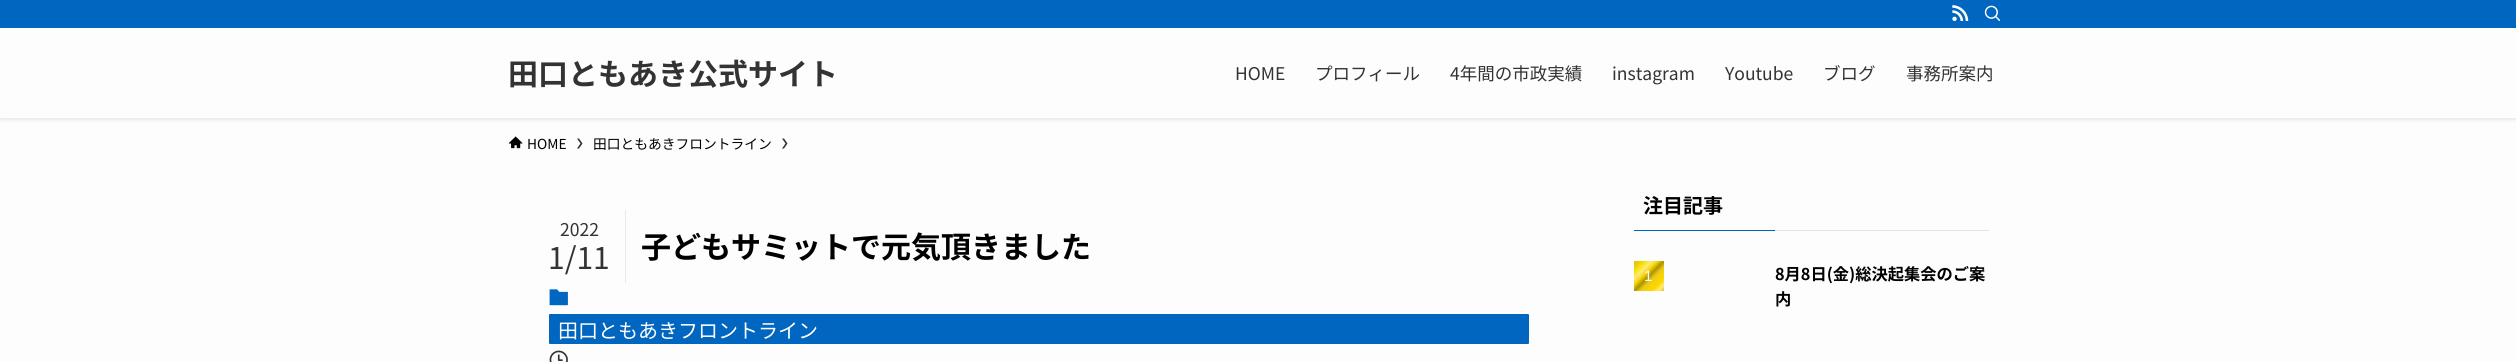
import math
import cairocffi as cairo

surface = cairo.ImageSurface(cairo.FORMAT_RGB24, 2516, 362)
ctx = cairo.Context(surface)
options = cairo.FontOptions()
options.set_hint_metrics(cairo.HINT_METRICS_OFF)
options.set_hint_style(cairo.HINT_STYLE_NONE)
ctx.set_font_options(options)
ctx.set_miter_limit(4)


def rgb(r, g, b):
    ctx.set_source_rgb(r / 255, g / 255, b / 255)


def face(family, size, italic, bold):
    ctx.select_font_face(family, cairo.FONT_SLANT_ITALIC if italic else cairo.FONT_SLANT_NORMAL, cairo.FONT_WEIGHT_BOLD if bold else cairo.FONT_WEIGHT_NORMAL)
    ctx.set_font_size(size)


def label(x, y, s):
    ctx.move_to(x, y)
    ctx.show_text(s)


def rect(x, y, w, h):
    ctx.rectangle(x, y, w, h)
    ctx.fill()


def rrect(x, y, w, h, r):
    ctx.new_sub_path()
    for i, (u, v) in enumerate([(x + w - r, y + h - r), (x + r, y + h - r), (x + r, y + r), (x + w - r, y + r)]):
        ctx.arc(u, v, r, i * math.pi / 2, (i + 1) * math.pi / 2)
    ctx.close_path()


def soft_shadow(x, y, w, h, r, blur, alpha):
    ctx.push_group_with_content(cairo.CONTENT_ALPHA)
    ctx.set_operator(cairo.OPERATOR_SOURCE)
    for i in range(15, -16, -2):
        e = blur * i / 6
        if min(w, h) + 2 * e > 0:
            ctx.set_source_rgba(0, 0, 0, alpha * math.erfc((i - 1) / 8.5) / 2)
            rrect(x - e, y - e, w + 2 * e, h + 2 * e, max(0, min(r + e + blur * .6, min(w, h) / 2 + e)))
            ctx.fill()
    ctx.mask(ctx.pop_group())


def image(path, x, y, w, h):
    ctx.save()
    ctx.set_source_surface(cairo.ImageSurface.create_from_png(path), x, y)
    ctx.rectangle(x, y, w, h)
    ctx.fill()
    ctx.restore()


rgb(253, 253, 253)
ctx.paint()
rgb(0, 0, 0)
soft_shadow(0, 1, 2516, 118, 0, 2.5, 0.12)
rgb(253, 253, 253)
rect(0, 28, 2516, 90)
rgb(0, 102, 191)
rect(0, 0, 2516, 28)
image('image0.png', 1952, 5, 17, 16)
image('image1.png', 1984, 5, 17, 16)
face('Noto Sans JP', 30, 0, 1)
rgb(51, 51, 51)
label(508, 85, '田口ともあき公式サイト')
face('Noto Sans JP', 17.5, 0, 0)
label(1235, 80, 'HOME')
label(1315, 80, 'プロフィール')
label(1450, 80, '4年間の市政実績')
label(1612, 80, 'instagram')
label(1725, 80, 'Youtube')
label(1823, 80, 'ブログ')
label(1906, 80, '事務所案内')
image('image2.png', 508, 136, 15, 13)
face('Noto Sans JP', 13.75, 0, 0)
rgb(0, 0, 0)
label(527, 149, 'HOME')
rgb(51, 51, 51)
ctx.new_path()
ctx.move_to(579, 138.5)
ctx.line_to(577, 138.5)
ctx.line_to(580.5, 143.5)
ctx.line_to(577, 148.5)
ctx.line_to(579, 148.5)
ctx.line_to(582.5, 143.5)
ctx.close_path()
ctx.fill()
rgb(0, 0, 0)
label(593, 149, '田口ともあきフロントライン')
rgb(51, 51, 51)
ctx.new_path()
ctx.move_to(784, 138.5)
ctx.line_to(782, 138.5)
ctx.line_to(785.5, 143.5)
ctx.line_to(782, 148.5)
ctx.line_to(784, 148.5)
ctx.line_to(787.5, 143.5)
ctx.close_path()
ctx.fill()
rgb(233, 233, 233)
rect(625, 210, 1, 73)
face('Noto Sans JP', 17.5, 0, 0)
rgb(51, 51, 51)
label(560, 236, '2022')
face('Noto Sans JP', 30, 0, 0)
label(548, 269, '1/11')
face('Noto Sans JP', 30, 0, 1)
rgb(0, 0, 0)
label(641, 258, '子どもサミットで元気頂きました')
image('image3.png', 549, 289, 19, 17)
rgb(0, 102, 191)
rrect(549, 314, 980, 30, 1)
ctx.fill()
face('Noto Sans JP', 20, 0, 0)
rgb(255, 255, 255)
label(558, 338, '田口ともあきフロントライン')
image('image4.png', 549, 350, 19, 12)
face('Noto Sans JP', 20, 0, 1)
rgb(0, 0, 0)
label(1643, 213, '注目記事')
rgb(0, 102, 191)
rect(1634, 230, 141, 1)
rgb(227, 227, 227)
rect(1775, 230, 214, 1)
gradient = cairo.LinearGradient(1664, 291, 1634, 261)
gradient.add_color_stop_rgba(0, 0.969, 0.749, 0.02, 1)
gradient.add_color_stop_rgba(0.1, 0.988, 0.918, 0.498, 1)
gradient.add_color_stop_rgba(0.2, 0.988, 0.843, 0, 1)
gradient.add_color_stop_rgba(0.3, 0.969, 0.827, 0.02, 1)
gradient.add_color_stop_rgba(0.4, 0.918, 0.792, 0.071, 1)
gradient.add_color_stop_rgba(0.5, 0.675, 0.576, 0.012, 1)
gradient.add_color_stop_rgba(0.6, 0.969, 0.827, 0.02, 1)
gradient.add_color_stop_rgba(0.7, 0.988, 0.918, 0.498, 1)
gradient.add_color_stop_rgba(0.8, 0.969, 0.906, 0.02, 1)
gradient.add_color_stop_rgba(0.9, 0.918, 0.792, 0.071, 1)
gradient.add_color_stop_rgba(1, 0.969, 0.749, 0.02, 1)
ctx.set_source(gradient)
rect(1634, 261, 30, 30)
face('Liberation Sans', 15, 0, 0)
rgb(255, 255, 255)
label(1644, 281, '1')
face('Noto Sans JP', 16.25, 0, 1)
rgb(0, 0, 0)
label(1775, 280, '8月8日(金)総決起集会のご案')
label(1775, 305, '内')
surface.write_to_png('render.png')
